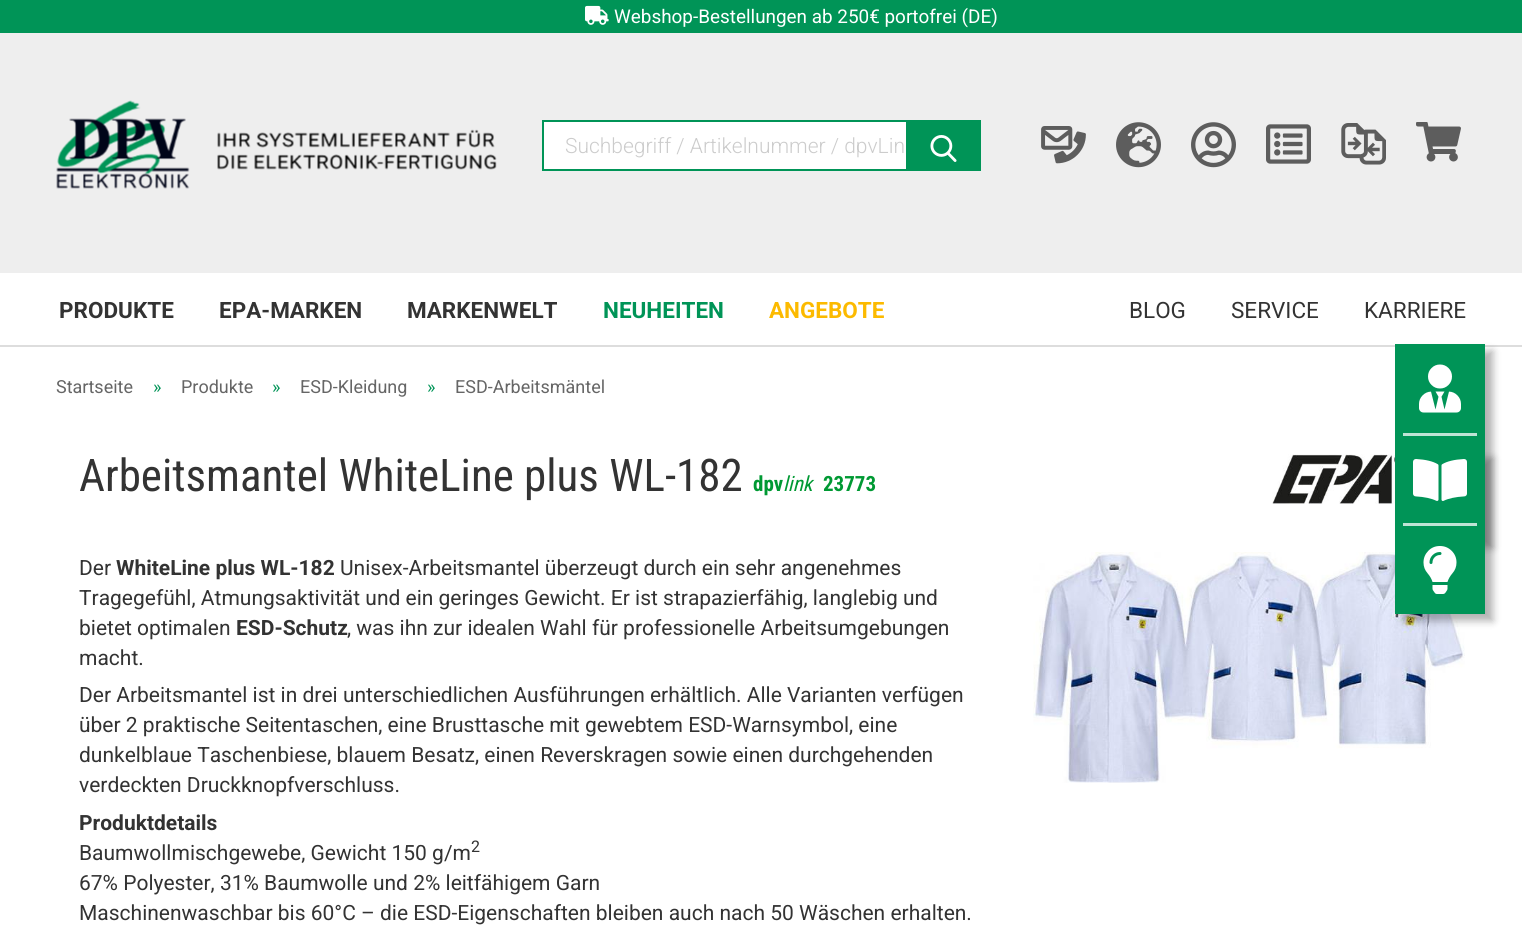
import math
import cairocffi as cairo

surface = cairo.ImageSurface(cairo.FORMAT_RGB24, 1522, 951)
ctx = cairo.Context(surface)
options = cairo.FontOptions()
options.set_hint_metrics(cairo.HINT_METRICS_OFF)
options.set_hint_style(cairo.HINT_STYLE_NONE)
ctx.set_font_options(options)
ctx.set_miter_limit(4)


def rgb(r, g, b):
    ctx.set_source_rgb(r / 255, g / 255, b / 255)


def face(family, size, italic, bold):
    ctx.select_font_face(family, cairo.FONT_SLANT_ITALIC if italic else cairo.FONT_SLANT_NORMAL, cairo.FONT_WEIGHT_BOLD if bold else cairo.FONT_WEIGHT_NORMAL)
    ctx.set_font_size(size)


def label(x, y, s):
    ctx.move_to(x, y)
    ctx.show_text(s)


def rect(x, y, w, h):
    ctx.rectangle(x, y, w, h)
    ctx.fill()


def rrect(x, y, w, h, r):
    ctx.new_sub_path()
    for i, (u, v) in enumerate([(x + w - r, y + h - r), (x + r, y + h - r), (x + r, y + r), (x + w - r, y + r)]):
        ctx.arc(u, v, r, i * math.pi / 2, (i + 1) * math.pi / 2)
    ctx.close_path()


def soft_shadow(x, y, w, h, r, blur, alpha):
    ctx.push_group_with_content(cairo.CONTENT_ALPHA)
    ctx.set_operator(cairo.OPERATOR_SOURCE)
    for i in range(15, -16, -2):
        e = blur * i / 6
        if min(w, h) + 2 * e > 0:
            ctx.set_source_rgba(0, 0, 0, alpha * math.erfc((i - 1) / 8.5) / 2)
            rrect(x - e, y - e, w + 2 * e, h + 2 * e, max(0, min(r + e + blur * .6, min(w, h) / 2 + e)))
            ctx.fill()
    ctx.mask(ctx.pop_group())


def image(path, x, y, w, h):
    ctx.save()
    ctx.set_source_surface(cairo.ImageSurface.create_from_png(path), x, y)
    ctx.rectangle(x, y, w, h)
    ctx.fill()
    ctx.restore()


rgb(255, 255, 255)
ctx.paint()
rgb(238, 238, 238)
rect(0, 33, 1522, 240)
rgb(0, 148, 87)
rect(0, 0, 1522, 33)
image('image0.png', 585, 5, 24, 20)
face('Roboto', 18.9, 0, 0)
rgb(255, 255, 255)
label(614, 23, 'Webshop-Bestellungen ab 250€ portofrei (DE)')
image('image1.png', 56, 100, 441, 89)
rect(544, 122, 362, 47)
ctx.rectangle(543, 121, 437, 49)
rgb(0, 148, 87)
ctx.stroke()
face('Roboto Light', 21, 0, 0)
rgb(204, 204, 204)
label(565, 153, 'Suchbegriff / Artikelnummer / dpvLin')
rgb(0, 148, 87)
rect(906, 122, 73, 47)
image('image2.png', 930, 135, 27, 27)
image('image3.png', 1041, 126, 45, 38)
image('image4.png', 1116, 122, 45, 46)
image('image5.png', 1191, 122, 45, 46)
image('image6.png', 1266, 124, 45, 40)
image('image7.png', 1341, 123, 45, 42)
image('image8.png', 1416, 122, 45, 40)
rgb(221, 221, 221)
rect(0, 345, 1522, 2)
face('Roboto', 22.5, 0, 1)
rgb(51, 51, 51)
label(59, 318, 'PRODUKTE')
label(219, 318, 'EPA-MARKEN')
label(407, 318, 'MARKENWELT')
rgb(0, 148, 87)
label(603, 318, 'NEUHEITEN')
rgb(252, 186, 0)
label(769, 318, 'ANGEBOTE')
face('Roboto', 22.5, 0, 0)
rgb(51, 51, 51)
label(1129, 318, 'BLOG')
label(1231, 318, 'SERVICE')
label(1364, 318, 'KARRIERE')
face('Roboto', 18, 0, 0)
rgb(102, 102, 102)
label(56, 393, 'Startseite')
rgb(0, 148, 87)
label(153, 393, '»')
rgb(102, 102, 102)
label(181, 393, 'Produkte')
rgb(0, 148, 87)
label(272, 393, '»')
rgb(102, 102, 102)
label(300, 393, 'ESD-Kleidung')
rgb(0, 148, 87)
label(427, 393, '»')
rgb(102, 102, 102)
label(455, 393, 'ESD-Arbeitsmäntel')
face('Roboto Condensed', 45, 0, 0)
rgb(51, 51, 51)
label(79, 491, 'Arbeitsmantel WhiteLine plus WL-182')
face('Roboto Condensed', 21, 0, 1)
rgb(0, 153, 51)
label(753, 491, 'dpv')
face('Roboto Condensed', 21, 1, 0)
label(783, 491, 'link')
face('Roboto Condensed', 21, 0, 1)
label(823, 491, '23773')
image('image9.png', 1272, 454, 123, 50)
face('Roboto', 21, 0, 0)
rgb(51, 51, 51)
label(79, 575, 'Der')
face('Roboto', 21, 0, 1)
label(116, 575, 'WhiteLine plus WL-182')
face('Roboto', 21, 0, 0)
label(340, 575, 'Unisex-Arbeitsmantel überzeugt durch ein sehr angenehmes')
label(79, 605, 'Tragegefühl, Atmungsaktivität und ein geringes Gewicht. Er ist strapazierfähig, langlebig und')
label(79, 635, 'bietet optimalen')
face('Roboto', 21, 0, 1)
label(236, 635, 'ESD-Schutz')
face('Roboto', 21, 0, 0)
label(347, 635, ', was ihn zur idealen Wahl für professionelle Arbeitsumgebungen')
label(79, 665, 'macht.')
label(79, 702, 'Der Arbeitsmantel ist in drei unterschiedlichen Ausführungen erhältlich. Alle Varianten verfügen')
label(79, 732, 'über 2 praktische Seitentaschen, eine Brusttasche mit gewebtem ESD-Warnsymbol, eine')
label(79, 762, 'dunkelblaue Taschenbiese, blauem Besatz, einen Reverskragen sowie einen durchgehenden')
label(79, 792, 'verdeckten Druckknopfverschluss.')
face('Roboto', 21, 0, 1)
label(79, 830, 'Produktdetails')
face('Roboto', 21, 0, 0)
label(79, 860, 'Baumwollmischgewebe, Gewicht 150 g/m')
face('Roboto', 16, 0, 0)
label(471, 852, '2')
face('Roboto', 21, 0, 0)
label(79, 890, '67% Polyester, 31% Baumwolle und 2% leitfähigem Garn')
label(79, 920, 'Maschinenwaschbar bis 60°C – die ESD-Eigenschaften bleiben auch nach 50 Wäschen erhalten.')
image('image10.png', 1033, 552, 432, 231)
rgb(0, 0, 0)
soft_shadow(1403, 351, 90, 270, 0, 4, 0.3)
soft_shadow(1403, 458, 90, 90, 0, 4, 0.3)
rgb(0, 148, 87)
rect(1395, 344, 90, 270)
image('image11.png', 1419, 364, 42, 49)
rgb(191, 228, 213)
rect(1403, 433, 74, 3)
image('image12.png', 1413, 459, 54, 42)
rect(1403, 523, 74, 3)
image('image13.png', 1423, 546, 34, 48)
surface.write_to_png('render.png')
